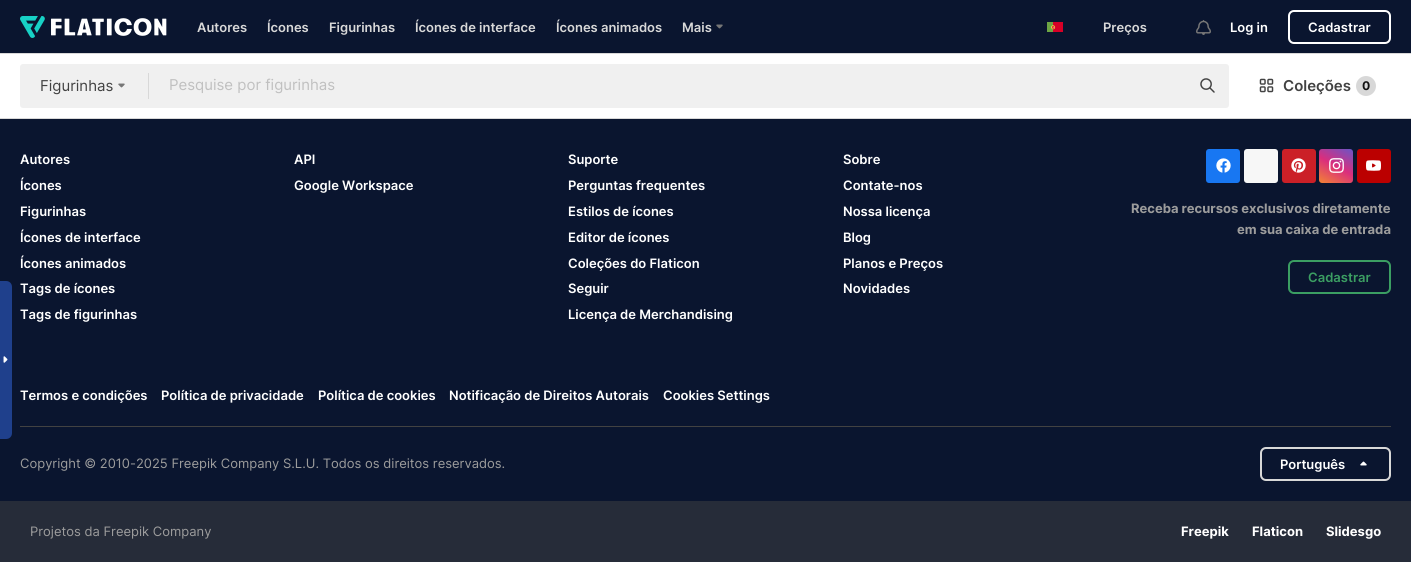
import math
import cairocffi as cairo

surface = cairo.ImageSurface(cairo.FORMAT_RGB24, 1411, 562)
ctx = cairo.Context(surface)
options = cairo.FontOptions()
options.set_hint_metrics(cairo.HINT_METRICS_OFF)
options.set_hint_style(cairo.HINT_STYLE_NONE)
ctx.set_font_options(options)
ctx.set_miter_limit(4)


def rgb(r, g, b):
    ctx.set_source_rgb(r / 255, g / 255, b / 255)


def face(family, size, italic, bold):
    ctx.select_font_face(family, cairo.FONT_SLANT_ITALIC if italic else cairo.FONT_SLANT_NORMAL, cairo.FONT_WEIGHT_BOLD if bold else cairo.FONT_WEIGHT_NORMAL)
    ctx.set_font_size(size)


def label(x, y, s):
    ctx.move_to(x, y)
    ctx.show_text(s)


def rect(x, y, w, h):
    ctx.rectangle(x, y, w, h)
    ctx.fill()


def rrect(x, y, w, h, r):
    ctx.new_sub_path()
    for i, (u, v) in enumerate([(x + w - r, y + h - r), (x + r, y + h - r), (x + r, y + r), (x + w - r, y + r)]):
        ctx.arc(u, v, r, i * math.pi / 2, (i + 1) * math.pi / 2)
    ctx.close_path()


def image(path, x, y, w, h):
    ctx.save()
    ctx.set_source_surface(cairo.ImageSurface.create_from_png(path), x, y)
    ctx.rectangle(x, y, w, h)
    ctx.fill()
    ctx.restore()


rgb(10, 21, 47)
ctx.paint()
rgb(31, 64, 140)
ctx.new_path()
ctx.move_to(0, 281)
ctx.line_to(6, 281)
ctx.curve_to(9.5, 281, 12, 283.5, 12, 287)
ctx.line_to(12, 433)
ctx.curve_to(12, 436.5, 9.5, 439, 6, 439)
ctx.line_to(0, 439)
ctx.close_path()
ctx.fill()
image('image0.png', 3, 356, 5, 7)
image('image1.png', 20, 16, 147, 22)
face('Inter SemiBold', 13, 0, 0)
rgb(216, 216, 216)
label(197, 32, 'Autores')
label(267, 32, 'Ícones')
label(329, 32, 'Figurinhas')
label(415, 32, 'Ícones de interface')
label(556, 32, 'Ícones animados')
label(682, 32, 'Mais')
image('image2.png', 716, 24, 7, 5)
image('image3.png', 1047, 22, 16, 10)
label(1103, 32, 'Preços')
image('image4.png', 1196, 20, 15, 15)
rgb(255, 255, 255)
label(1230, 32, 'Log in')
rrect(1289, 11, 101, 32, 5)
ctx.stroke()
label(1308, 32, 'Cadastrar')
ctx.rectangle(-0.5, 53.5, 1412, 65)
rgb(216, 216, 216)
ctx.set_line_width(1)
ctx.stroke()
rgb(255, 255, 255)
rect(0, 54, 1411, 64)
rgb(240, 240, 240)
rrect(20, 64, 1209, 44, 3)
ctx.fill()
face('Inter', 15, 0, 0)
rgb(66, 66, 66)
label(40, 91, 'Figurinhas')
image('image5.png', 118, 83, 7, 5)
rgb(216, 216, 216)
rect(148, 73, 1, 26)
rgb(192, 192, 192)
label(169, 90, 'Pesquise por figurinhas')
image('image6.png', 1200, 78, 15, 15)
image('image7.png', 1259, 78, 15, 15)
face('Inter SemiBold', 15, 0, 0)
rgb(66, 66, 66)
label(1283, 91, 'Coleções')
rgb(216, 216, 216)
ctx.new_path()
ctx.arc(1366, 86, 10, 0, 2 * math.pi)
ctx.fill()
face('Inter', 12, 0, 1)
rgb(18, 18, 18)
label(1362, 90, '0')
face('Inter SemiBold', 13, 0, 0)
rgb(255, 255, 255)
label(20, 164, 'Autores')
label(20, 190, 'Ícones')
label(20, 216, 'Figurinhas')
label(20, 242, 'Ícones de interface')
label(20, 268, 'Ícones animados')
label(20, 293, 'Tags de ícones')
label(20, 319, 'Tags de figurinhas')
label(294, 164, 'API')
label(294, 190, 'Google Workspace')
label(568, 164, 'Suporte')
label(568, 190, 'Perguntas frequentes')
label(568, 216, 'Estilos de ícones')
label(568, 242, 'Editor de ícones')
label(568, 268, 'Coleções do Flaticon')
label(568, 293, 'Seguir')
label(568, 319, 'Licença de Merchandising')
label(843, 164, 'Sobre')
label(843, 190, 'Contate-nos')
label(843, 216, 'Nossa licença')
label(843, 242, 'Blog')
label(843, 268, 'Planos e Preços')
label(843, 293, 'Novidades')
rgb(24, 119, 242)
rrect(1206, 149, 34, 34, 3)
ctx.fill()
image('image8.png', 1216, 158, 15, 15)
rgb(247, 247, 247)
rrect(1244, 149, 34, 34, 3)
ctx.fill()
rgb(203, 32, 39)
rrect(1282, 149, 34, 34, 3)
ctx.fill()
image('image9.png', 1291, 158, 15, 15)
gradient = cairo.LinearGradient(1325, 186, 1347, 146)
gradient.add_color_stop_rgba(0, 0.953, 0.514, 0.204, 1)
gradient.add_color_stop_rgba(0.5, 0.855, 0.18, 0.49, 1)
gradient.add_color_stop_rgba(1, 0.42, 0.329, 0.776, 1)
ctx.set_source(gradient)
rrect(1319, 149, 34, 34, 3)
ctx.fill()
image('image10.png', 1329, 158, 15, 15)
rgb(187, 0, 0)
rrect(1357, 149, 34, 34, 3)
ctx.fill()
image('image11.png', 1366, 160, 15, 11)
face('Inter', 13, 0, 1)
rgb(156, 156, 156)
label(1131, 213, 'Receba recursos exclusivos diretamente')
label(1237, 234, 'em sua caixa de entrada')
rrect(1289, 261, 101, 32, 5)
rgb(59, 158, 98)
ctx.set_line_width(2)
ctx.stroke()
face('Inter SemiBold', 13, 0, 0)
label(1308, 282, 'Cadastrar')
rgb(255, 255, 255)
label(20, 400, 'Termos e condições')
label(161, 400, 'Política de privacidade')
label(318, 400, 'Política de cookies')
label(449, 400, 'Notificação de Direitos Autorais')
label(663, 400, 'Cookies Settings')
rgb(66, 66, 66)
rect(20, 426, 1371, 1)
face('Inter', 13, 0, 0)
rgb(156, 156, 156)
label(20, 468, 'Copyright © 2010-2025 Freepik Company S.L.U. Todos os direitos reservados.')
rrect(1261, 448, 129, 32, 5)
rgb(216, 216, 216)
ctx.stroke()
face('Inter SemiBold', 13, 0, 0)
rgb(255, 255, 255)
label(1280, 469, 'Português')
image('image12.png', 1360, 461, 7, 5)
rgb(38, 44, 57)
rect(0, 501, 1411, 61)
face('Inter', 13, 0, 0)
rgb(156, 156, 156)
label(30, 536, 'Projetos da Freepik Company')
face('Inter', 13, 0, 1)
rgb(255, 255, 255)
label(1181, 536, 'Freepik')
label(1252, 536, 'Flaticon')
label(1326, 536, 'Slidesgo')
surface.write_to_png('render.png')
